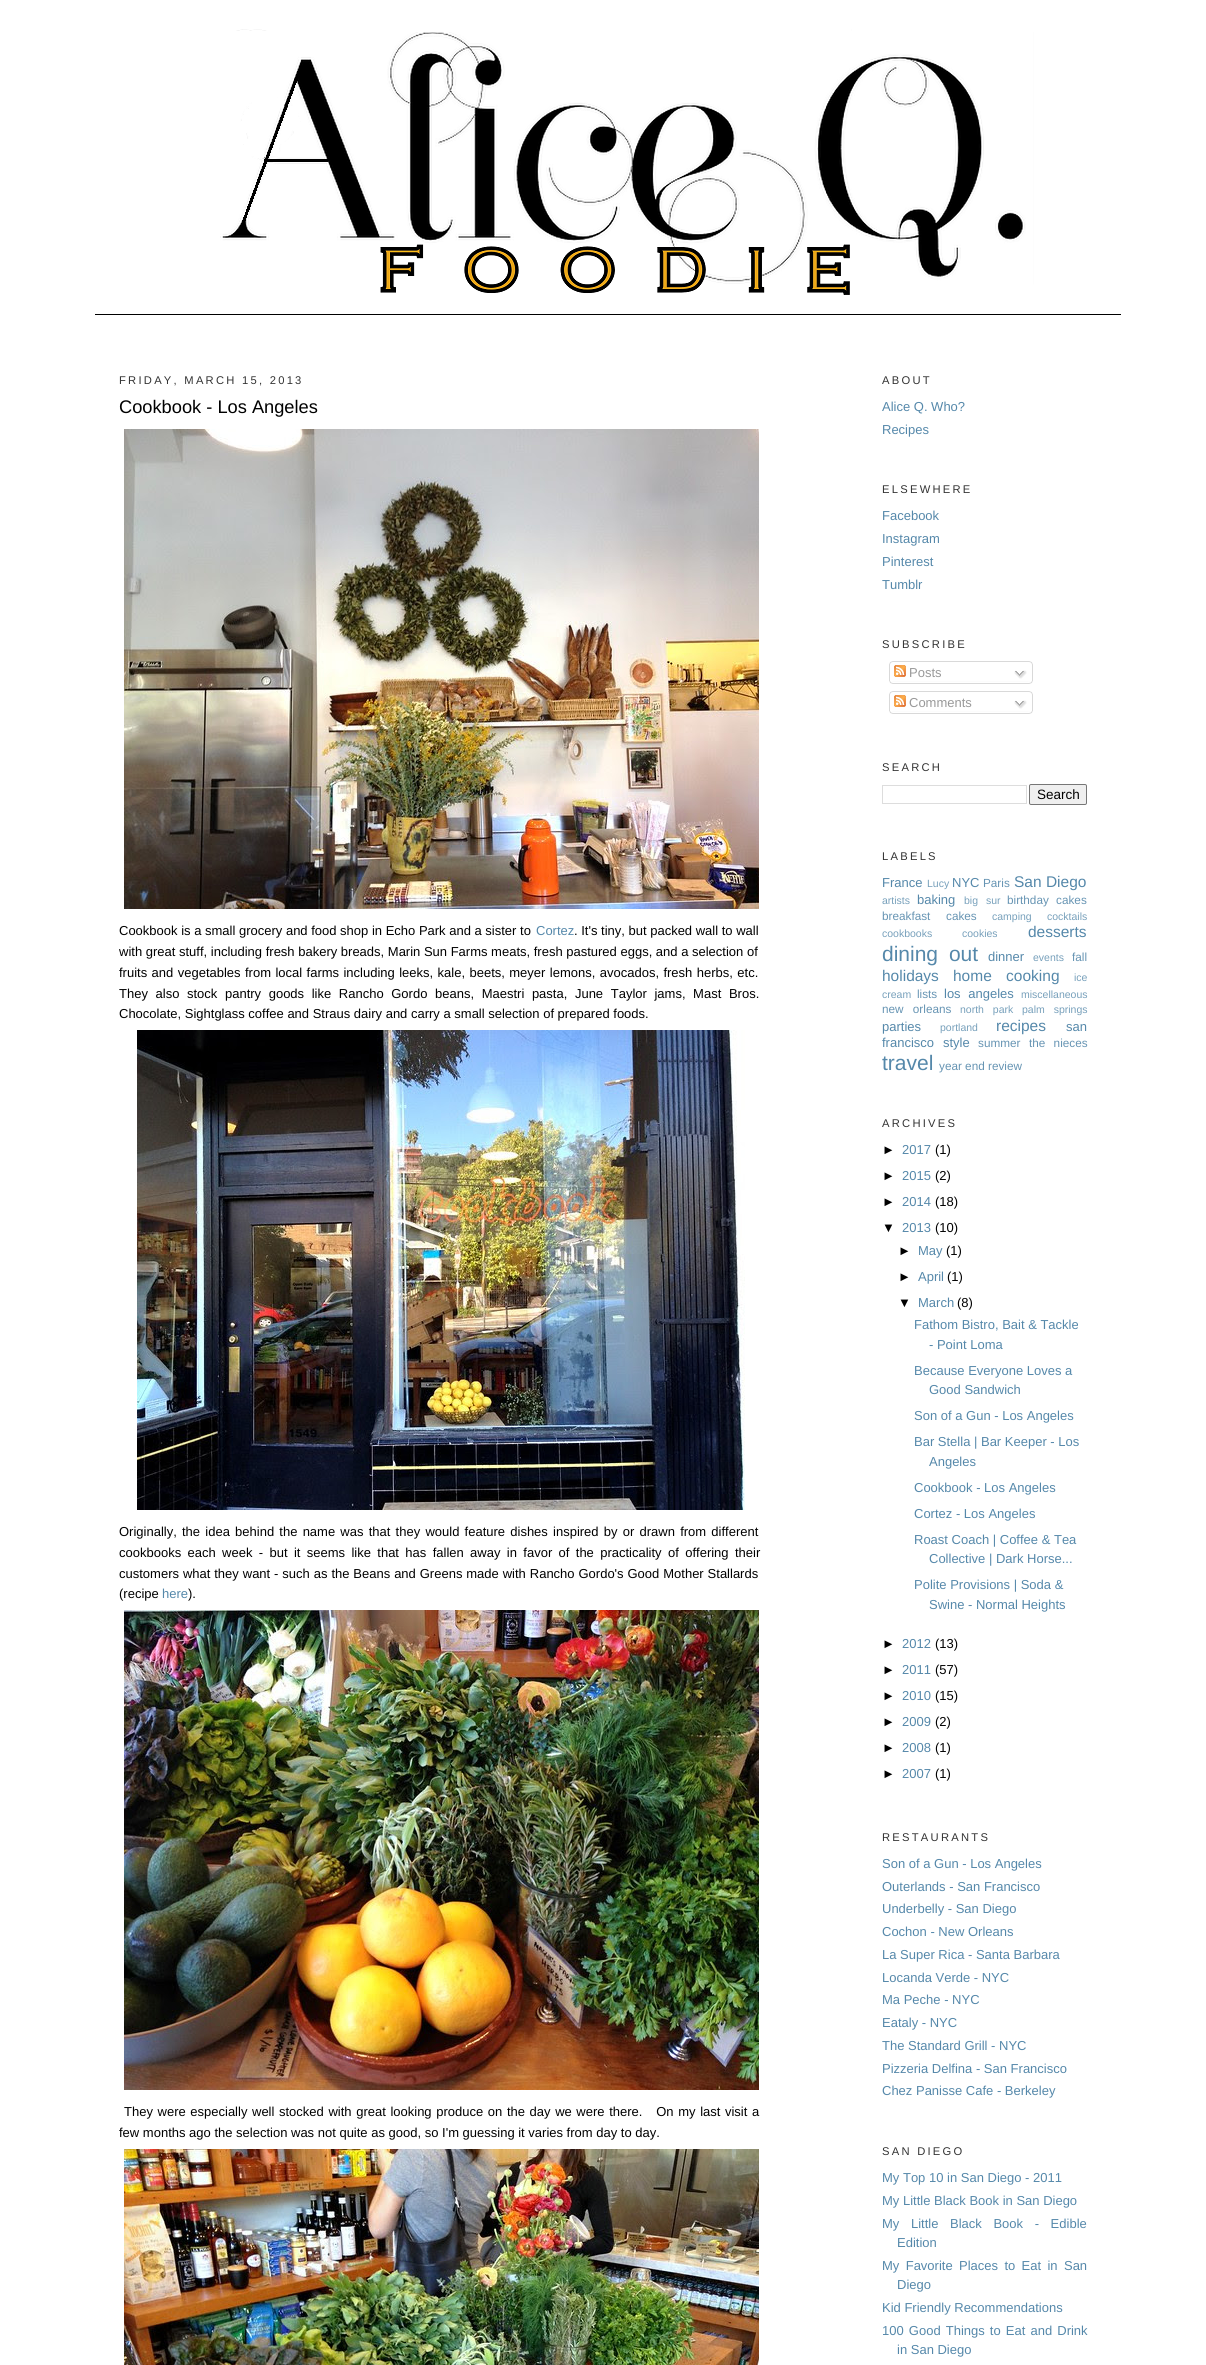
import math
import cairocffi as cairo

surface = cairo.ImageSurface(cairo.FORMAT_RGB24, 1206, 2365)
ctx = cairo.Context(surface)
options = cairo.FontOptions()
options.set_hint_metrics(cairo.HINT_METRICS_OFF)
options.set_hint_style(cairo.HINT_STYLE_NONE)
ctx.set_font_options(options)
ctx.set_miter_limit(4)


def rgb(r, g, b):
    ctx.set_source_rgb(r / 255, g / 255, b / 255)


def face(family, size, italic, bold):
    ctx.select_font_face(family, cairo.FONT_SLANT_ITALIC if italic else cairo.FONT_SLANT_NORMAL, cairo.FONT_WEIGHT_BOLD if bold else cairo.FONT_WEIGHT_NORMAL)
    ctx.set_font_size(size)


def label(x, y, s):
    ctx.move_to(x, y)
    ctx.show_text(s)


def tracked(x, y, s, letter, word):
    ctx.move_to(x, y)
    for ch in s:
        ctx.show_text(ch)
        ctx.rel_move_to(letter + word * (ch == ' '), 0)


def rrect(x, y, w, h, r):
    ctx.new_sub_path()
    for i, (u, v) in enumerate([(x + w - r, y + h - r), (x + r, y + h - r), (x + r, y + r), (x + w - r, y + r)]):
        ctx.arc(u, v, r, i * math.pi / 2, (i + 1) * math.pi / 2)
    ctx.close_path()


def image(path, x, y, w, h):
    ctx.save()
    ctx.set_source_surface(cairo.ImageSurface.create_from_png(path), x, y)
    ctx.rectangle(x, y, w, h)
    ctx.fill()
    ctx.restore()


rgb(255, 255, 255)
ctx.paint()
image('image0.png', 95, 29, 1026, 286)
face('Liberation Sans', 11.2, 0, 0)
rgb(51, 51, 51)
tracked(119, 384, 'FRIDAY, MARCH 15, 2013', 2.25, 0)
face('Liberation Sans', 18.25, 0, 0)
rgb(0, 0, 0)
label(119, 413, 'Cookbook - Los Angeles')
image('image1.png', 124, 429, 635, 480)
face('Liberation Sans', 13, 0, 0)
label(119, 935, 'Cookbook is a small grocery and food shop in Echo Park and a sister to')
rgb(85, 136, 170)
label(536, 935, 'Cortez')
rgb(0, 0, 0)
label(574, 935, '. It\'s tiny, but packed wall to wall')
label(119, 956, 'with great stuff, including fresh bakery breads, Marin Sun Farms meats, fresh pastured eggs, and a selection of')
tracked(119, 977, 'fruits and vegetables from local farms including leeks, kale, beets, meyer lemons, avocados, fresh herbs, etc.', 0, 0.8)
tracked(119, 998, 'They also stock pantry goods like Rancho Gordo beans, Maestri pasta, June Taylor jams, Mast Bros.', 0, 4)
label(119, 1018, 'Chocolate, Sightglass coffee and Straus dairy and carry a small selection of prepared foods.')
image('image2.png', 137, 1030, 608, 480)
tracked(119, 1536, 'Originally, the idea behind the name was that they would feature dishes inspired by or drawn from different', 0, 1.6)
tracked(119, 1557, 'cookbooks each week - but it seems like that has fallen away in favor of the practicality of offering their', 0, 2.75)
tracked(119, 1578, 'customers what they want - such as the Beans and Greens made with Rancho Gordo\'s Good Mother Stallards', 0, 0.3)
label(119, 1598, '(recipe')
rgb(85, 136, 170)
label(162, 1598, 'here')
rgb(0, 0, 0)
label(188, 1598, ').')
image('image3.png', 124, 1610, 635, 480)
tracked(124, 2116, 'They were especially well stocked with great looking produce on the day we were there.   On my last visit a', 0, 1)
label(119, 2137, 'few months ago the selection was not quite as good, so I\'m guessing it varies from day to day.')
image('image4.png', 124, 2149, 635, 216)
face('Liberation Sans', 11.2, 0, 0)
rgb(51, 51, 51)
tracked(882, 384, 'ABOUT', 2.25, 0)
face('Liberation Sans', 13, 0, 0)
rgb(85, 136, 170)
label(882, 411, 'Alice Q. Who?')
label(882, 434, 'Recipes')
face('Liberation Sans', 11.2, 0, 0)
rgb(51, 51, 51)
tracked(882, 493, 'ELSEWHERE', 2.25, 0)
face('Liberation Sans', 13, 0, 0)
rgb(85, 136, 170)
label(882, 520, 'Facebook')
label(882, 543, 'Instagram')
label(882, 566, 'Pinterest')
label(882, 589, 'Tumblr')
face('Liberation Sans', 11.2, 0, 0)
rgb(51, 51, 51)
tracked(882, 648, 'SUBSCRIBE', 2.25, 0)
image('image5.png', 889, 661, 144, 20)
image('image6.png', 894, 665, 12, 12)
face('Liberation Sans', 13, 0, 0)
rgb(153, 153, 153)
label(909, 677, 'Posts')
image('image7.png', 1014, 670, 13, 9)
image('image8.png', 889, 681, 144, 3)
image('image5.png', 889, 691, 144, 20)
image('image6.png', 894, 695, 12, 12)
label(909, 707, 'Comments')
image('image7.png', 1014, 700, 13, 9)
image('image8.png', 889, 711, 144, 3)
face('Liberation Sans', 11.2, 0, 0)
rgb(51, 51, 51)
tracked(882, 771, 'SEARCH', 2.25, 0)
ctx.rectangle(882.5, 785.5, 144, 18)
rgb(221, 221, 221)
ctx.set_line_width(1)
ctx.stroke()
rgb(239, 239, 239)
rrect(1029.5, 784.5, 57, 20, 1.5)
ctx.fill_preserve()
rgb(118, 118, 118)
ctx.stroke()
face('Liberation Sans', 13.5, 0, 0)
rgb(0, 0, 0)
label(1037, 799, 'Search')
face('Liberation Sans', 11.2, 0, 0)
rgb(51, 51, 51)
tracked(882, 860, 'LABELS', 2.25, 0)
face('Liberation Sans', 13, 0, 0)
rgb(85, 136, 170)
label(882, 887, 'France')
face('Liberation Sans', 10.5, 0, 0)
rgb(119, 160, 187)
label(927, 887, 'Lucy')
face('Liberation Sans', 13, 0, 0)
rgb(85, 136, 170)
label(952, 887, 'NYC')
face('Liberation Sans', 11.75, 0, 0)
rgb(102, 148, 179)
label(983, 887, 'Paris')
face('Liberation Sans', 15.5, 0, 0)
rgb(85, 136, 170)
label(1014, 887, 'San Diego')
face('Liberation Sans', 10.5, 0, 0)
rgb(119, 160, 187)
label(882, 904, 'artists')
face('Liberation Sans', 13, 0, 0)
rgb(85, 136, 170)
label(917, 904, 'baking')
face('Liberation Sans', 10.5, 0, 0)
rgb(119, 160, 187)
tracked(964, 904, 'big sur', 0, 5)
face('Liberation Sans', 11.75, 0, 0)
rgb(102, 148, 179)
tracked(1007, 904, 'birthday cakes', 0, 4)
label(882, 920, 'breakfast')
label(946, 920, 'cakes')
face('Liberation Sans', 10.5, 0, 0)
rgb(119, 160, 187)
label(992, 920, 'camping')
label(1047, 920, 'cocktails')
label(882, 937, 'cookbooks')
label(962, 937, 'cookies')
face('Liberation Sans', 15.5, 0, 0)
rgb(85, 136, 170)
label(1028, 937, 'desserts')
face('Liberation Sans', 21, 0, 0)
tracked(882, 961, 'dining out', 0, 5)
face('Liberation Sans', 13, 0, 0)
label(988, 961, 'dinner')
face('Liberation Sans', 10.5, 0, 0)
rgb(119, 160, 187)
label(1033, 961, 'events')
face('Liberation Sans', 11.75, 0, 0)
rgb(102, 148, 179)
label(1072, 961, 'fall')
face('Liberation Sans', 15.5, 0, 0)
rgb(85, 136, 170)
label(882, 981, 'holidays')
tracked(953, 981, 'home cooking', 0, 10)
face('Liberation Sans', 10.5, 0, 0)
rgb(119, 160, 187)
label(1074, 981, 'ice')
label(882, 998, 'cream')
face('Liberation Sans', 11.75, 0, 0)
rgb(102, 148, 179)
label(917, 998, 'lists')
face('Liberation Sans', 13, 0, 0)
rgb(85, 136, 170)
tracked(944, 998, 'los angeles', 0, 4)
face('Liberation Sans', 10.5, 0, 0)
rgb(119, 160, 187)
label(1021, 998, 'miscellaneous')
face('Liberation Sans', 11.75, 0, 0)
rgb(102, 148, 179)
tracked(882, 1013, 'new orleans', 0, 6)
face('Liberation Sans', 10.5, 0, 0)
rgb(119, 160, 187)
tracked(960, 1013, 'north park', 0, 6)
tracked(1022, 1013, 'palm springs', 0, 6)
face('Liberation Sans', 13, 0, 0)
rgb(85, 136, 170)
label(882, 1031, 'parties')
face('Liberation Sans', 10.5, 0, 0)
rgb(119, 160, 187)
label(940, 1031, 'portland')
face('Liberation Sans', 15.5, 0, 0)
rgb(85, 136, 170)
label(996, 1031, 'recipes')
face('Liberation Sans', 13, 0, 0)
label(1066, 1031, 'san')
label(882, 1047, 'francisco')
label(943, 1047, 'style')
face('Liberation Sans', 11.75, 0, 0)
rgb(102, 148, 179)
label(978, 1047, 'summer')
tracked(1029, 1047, 'the nieces', 0, 5)
face('Liberation Sans', 21, 0, 0)
rgb(85, 136, 170)
label(882, 1070, 'travel')
face('Liberation Sans', 11.75, 0, 0)
rgb(102, 148, 179)
label(939, 1070, 'year end review')
face('Liberation Sans', 11.2, 0, 0)
rgb(51, 51, 51)
tracked(882, 1127, 'ARCHIVES', 2.25, 0)
face('Liberation Sans', 13, 0, 0)
rgb(0, 0, 0)
label(882, 1154, '►')
rgb(85, 136, 170)
label(902, 1154, '2017')
rgb(0, 0, 0)
label(935, 1154, '(1)')
label(882, 1180, '►')
rgb(85, 136, 170)
label(902, 1180, '2015')
rgb(0, 0, 0)
label(935, 1180, '(2)')
label(882, 1206, '►')
rgb(85, 136, 170)
label(902, 1206, '2014')
rgb(0, 0, 0)
label(935, 1206, '(18)')
label(882, 1232, '▼')
rgb(85, 136, 170)
label(902, 1232, '2013')
rgb(0, 0, 0)
label(935, 1232, '(10)')
label(898, 1255, '►')
rgb(85, 136, 170)
label(918, 1255, 'May')
rgb(0, 0, 0)
label(946, 1255, '(1)')
label(898, 1281, '►')
rgb(85, 136, 170)
label(918, 1281, 'April')
rgb(0, 0, 0)
label(947, 1281, '(1)')
label(898, 1307, '▼')
rgb(85, 136, 170)
label(918, 1307, 'March')
rgb(0, 0, 0)
label(957, 1307, '(8)')
rgb(85, 136, 170)
label(914, 1329, 'Fathom Bistro, Bait & Tackle')
label(929, 1349, '- Point Loma')
label(914, 1375, 'Because Everyone Loves a')
label(929, 1394, 'Good Sandwich')
label(914, 1420, 'Son of a Gun - Los Angeles')
label(914, 1446, 'Bar Stella | Bar Keeper - Los')
label(929, 1466, 'Angeles')
label(914, 1492, 'Cookbook - Los Angeles')
label(914, 1518, 'Cortez - Los Angeles')
label(914, 1544, 'Roast Coach | Coffee & Tea')
label(929, 1563, 'Collective | Dark Horse...')
label(914, 1589, 'Polite Provisions | Soda &')
label(929, 1609, 'Swine - Normal Heights')
rgb(0, 0, 0)
label(882, 1648, '►')
rgb(85, 136, 170)
label(902, 1648, '2012')
rgb(0, 0, 0)
label(935, 1648, '(13)')
label(882, 1674, '►')
rgb(85, 136, 170)
label(902, 1674, '2011')
rgb(0, 0, 0)
label(935, 1674, '(57)')
label(882, 1700, '►')
rgb(85, 136, 170)
label(902, 1700, '2010')
rgb(0, 0, 0)
label(935, 1700, '(15)')
label(882, 1726, '►')
rgb(85, 136, 170)
label(902, 1726, '2009')
rgb(0, 0, 0)
label(935, 1726, '(2)')
label(882, 1752, '►')
rgb(85, 136, 170)
label(902, 1752, '2008')
rgb(0, 0, 0)
label(935, 1752, '(1)')
label(882, 1778, '►')
rgb(85, 136, 170)
label(902, 1778, '2007')
rgb(0, 0, 0)
label(935, 1778, '(1)')
face('Liberation Sans', 11.2, 0, 0)
rgb(51, 51, 51)
tracked(882, 1841, 'RESTAURANTS', 2.25, 0)
face('Liberation Sans', 13, 0, 0)
rgb(85, 136, 170)
label(882, 1868, 'Son of a Gun - Los Angeles')
label(882, 1891, 'Outerlands - San Francisco')
label(882, 1913, 'Underbelly - San Diego')
label(882, 1936, 'Cochon - New Orleans')
label(882, 1959, 'La Super Rica - Santa Barbara')
label(882, 1982, 'Locanda Verde - NYC')
label(882, 2004, 'Ma Peche - NYC')
label(882, 2027, 'Eataly - NYC')
label(882, 2050, 'The Standard Grill - NYC')
label(882, 2073, 'Pizzeria Delfina - San Francisco')
label(882, 2095, 'Chez Panisse Cafe - Berkeley')
face('Liberation Sans', 11.2, 0, 0)
rgb(51, 51, 51)
tracked(882, 2155, 'SAN DIEGO', 2.25, 0)
face('Liberation Sans', 13, 0, 0)
rgb(85, 136, 170)
label(882, 2182, 'My Top 10 in San Diego - 2011')
label(882, 2205, 'My Little Black Book in San Diego')
tracked(882, 2228, 'My Little Black Book - Edible', 0, 8)
label(897, 2247, 'Edition')
tracked(882, 2270, 'My Favorite Places to Eat in San', 0, 2.75)
label(897, 2289, 'Diego')
label(882, 2312, 'Kid Friendly Recommendations')
tracked(882, 2335, '100 Good Things to Eat and Drink', 0, 1.5)
label(897, 2354, 'in San Diego')
surface.write_to_png('render.png')
